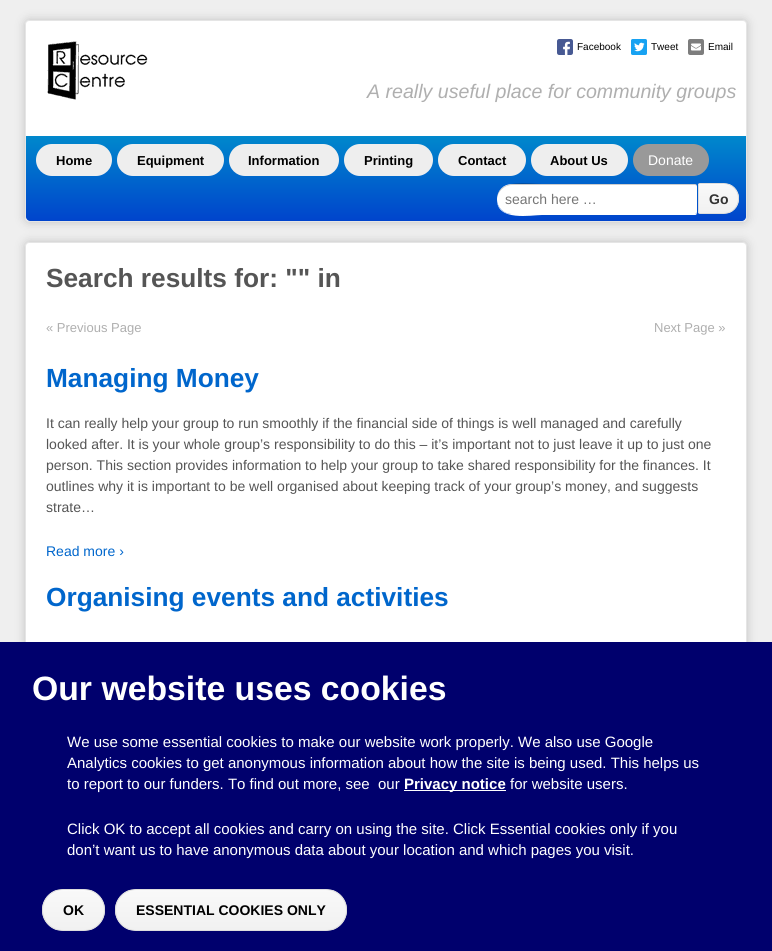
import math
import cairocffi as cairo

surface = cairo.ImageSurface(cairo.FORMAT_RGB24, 772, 951)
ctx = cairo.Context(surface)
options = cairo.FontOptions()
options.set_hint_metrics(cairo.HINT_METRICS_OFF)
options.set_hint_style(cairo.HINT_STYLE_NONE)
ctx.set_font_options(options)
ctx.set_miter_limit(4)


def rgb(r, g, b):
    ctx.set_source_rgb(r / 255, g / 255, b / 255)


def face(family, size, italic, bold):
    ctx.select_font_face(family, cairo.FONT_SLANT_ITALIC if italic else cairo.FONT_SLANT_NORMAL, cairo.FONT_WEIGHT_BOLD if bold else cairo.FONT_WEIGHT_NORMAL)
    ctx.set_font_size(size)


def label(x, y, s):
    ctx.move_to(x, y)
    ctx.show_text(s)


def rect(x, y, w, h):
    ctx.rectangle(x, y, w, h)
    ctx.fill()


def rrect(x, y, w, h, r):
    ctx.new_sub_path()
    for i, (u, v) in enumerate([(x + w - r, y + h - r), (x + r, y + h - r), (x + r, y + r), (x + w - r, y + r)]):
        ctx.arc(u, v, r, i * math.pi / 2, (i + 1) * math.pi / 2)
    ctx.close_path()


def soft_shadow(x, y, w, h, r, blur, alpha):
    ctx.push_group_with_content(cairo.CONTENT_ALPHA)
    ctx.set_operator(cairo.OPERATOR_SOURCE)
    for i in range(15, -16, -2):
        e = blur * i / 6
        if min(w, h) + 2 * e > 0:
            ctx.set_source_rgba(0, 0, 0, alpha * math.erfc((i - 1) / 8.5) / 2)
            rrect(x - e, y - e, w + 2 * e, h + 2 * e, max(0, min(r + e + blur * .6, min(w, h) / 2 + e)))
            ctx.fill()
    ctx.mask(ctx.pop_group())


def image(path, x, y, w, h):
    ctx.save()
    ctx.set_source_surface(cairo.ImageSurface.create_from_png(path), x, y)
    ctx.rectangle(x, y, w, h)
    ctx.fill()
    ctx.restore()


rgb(239, 239, 239)
ctx.paint()
rgb(0, 0, 0)
soft_shadow(25, 20, 722, 202, 4, 5, 0.2)
rgb(255, 255, 255)
rrect(25.5, 20.5, 721, 201, 3.5)
ctx.fill_preserve()
rgb(229, 229, 229)
ctx.set_line_width(1)
ctx.stroke()
image('image0.png', 47, 41, 101, 59)
image('image1.png', 557, 39, 16, 16)
face('Liberation Sans', 10, 0, 0)
rgb(0, 0, 0)
label(577, 50, 'Facebook')
image('image2.png', 631, 39, 16, 16)
label(651, 50, 'Tweet')
image('image3.png', 688, 39, 16, 16)
label(708, 50, 'Email')
face('Liberation Sans', 19.6, 1, 0)
rgb(175, 175, 175)
label(367, 98, 'A really useful place for community groups')
gradient = cairo.LinearGradient(386, 136, 386, 221)
gradient.add_color_stop_rgba(0, 0, 0.533, 0.8, 1)
gradient.add_color_stop_rgba(1, 0, 0.267, 0.8, 1)
ctx.set_source(gradient)
ctx.new_path()
ctx.move_to(26, 136)
ctx.line_to(746, 136)
ctx.line_to(746, 217)
ctx.curve_to(746, 219, 744, 221, 742, 221)
ctx.line_to(30, 221)
ctx.curve_to(28, 221, 26, 219, 26, 217)
ctx.close_path()
ctx.fill()
rgb(238, 238, 238)
rrect(36, 144, 76, 32, 16)
ctx.fill()
face('Liberation Sans', 13, 0, 1)
rgb(0, 0, 0)
label(56, 165, 'Home')
rgb(238, 238, 238)
rrect(117, 144, 107, 32, 16)
ctx.fill()
rgb(0, 0, 0)
label(137, 165, 'Equipment')
rgb(238, 238, 238)
rrect(229, 144, 110, 32, 16)
ctx.fill()
rgb(0, 0, 0)
label(248, 165, 'Information')
rgb(238, 238, 238)
rrect(344, 144, 89, 32, 16)
ctx.fill()
rgb(0, 0, 0)
label(364, 165, 'Printing')
rgb(238, 238, 238)
rrect(438, 144, 88, 32, 16)
ctx.fill()
rgb(0, 0, 0)
label(458, 165, 'Contact')
rgb(238, 238, 238)
rrect(531, 144, 97, 32, 16)
ctx.fill()
rgb(0, 0, 0)
label(550, 165, 'About Us')
rgb(153, 153, 153)
rrect(633, 144, 76, 32, 16)
ctx.fill()
face('Liberation Sans', 14, 0, 0)
rgb(255, 255, 255)
label(648, 165, 'Donate')
ctx.new_path()
ctx.move_to(497, 199)
ctx.curve_to(496, 222, 532, 215, 542, 215)
ctx.line_to(695, 215)
ctx.curve_to(697, 215, 697, 213, 697, 212)
ctx.curve_to(697, 213, 696, 214, 695, 214)
ctx.line_to(512, 214)
ctx.curve_to(504, 214, 497, 208, 497, 199)
ctx.close_path()
ctx.fill()
ctx.new_path()
ctx.move_to(512, 184)
ctx.line_to(695, 184)
ctx.curve_to(696, 184, 697, 185, 697, 186)
ctx.line_to(697, 212)
ctx.curve_to(697, 213, 696, 214, 695, 214)
ctx.line_to(512, 214)
ctx.curve_to(503.5, 214, 497, 207.5, 497, 199)
ctx.curve_to(497, 190.5, 503.5, 184, 512, 184)
ctx.close_path()
ctx.fill()
ctx.set_source_rgba(0, 0, 0, 0.2)
ctx.new_path()
ctx.move_to(512, 185)
ctx.line_to(695, 185)
ctx.curve_to(696, 185, 697, 186, 697, 187)
ctx.curve_to(697, 186, 697, 184, 695, 184)
ctx.line_to(542, 184)
ctx.curve_to(532, 184, 496, 177, 497, 200)
ctx.curve_to(497, 192, 504, 185, 512, 185)
ctx.close_path()
ctx.fill()
rgb(117, 117, 117)
label(505, 204, 'search here …')
ctx.save()
ctx.new_path()
ctx.move_to(700, 183)
ctx.line_to(723.5, 183)
ctx.curve_to(732, 183, 739, 190, 739, 198.5)
ctx.curve_to(739, 207, 732, 214, 723.5, 214)
ctx.line_to(700, 214)
ctx.curve_to(699, 214, 698, 213, 698, 212)
ctx.line_to(698, 185)
ctx.curve_to(698, 184, 699, 183, 700, 183)
ctx.close_path()
ctx.clip()
gradient = cairo.LinearGradient(719, 184, 719, 213)
gradient.add_color_stop_rgba(0, 0.976, 0.976, 0.976, 1)
gradient.add_color_stop_rgba(1, 0.945, 0.945, 0.945, 1)
ctx.set_source(gradient)
rect(698, 184, 41, 29)
ctx.restore()
rgb(251, 251, 251)
ctx.new_path()
ctx.move_to(700, 185)
ctx.line_to(724, 185)
ctx.curve_to(732, 185, 737.5, 190.5, 738, 199)
ctx.curve_to(738, 196, 737.5, 193, 735.5, 190.5)
ctx.curve_to(730, 182.5, 720, 184, 712, 184)
ctx.line_to(704, 184)
ctx.curve_to(701, 184, 699, 183, 699, 186)
ctx.curve_to(699, 185, 699, 185, 700, 185)
ctx.close_path()
ctx.fill()
ctx.new_path()
ctx.move_to(700, 183.5)
ctx.line_to(723.5, 183.5)
ctx.curve_to(732, 183.5, 738.5, 190, 738.5, 198.5)
ctx.curve_to(738.5, 207, 732, 213.5, 723.5, 213.5)
ctx.line_to(700, 213.5)
ctx.curve_to(699, 213.5, 698.5, 213, 698.5, 212)
ctx.line_to(698.5, 185)
ctx.curve_to(698.5, 184, 699, 183.5, 700, 183.5)
ctx.close_path()
rgb(221, 221, 221)
ctx.stroke()
face('Liberation Sans', 14, 0, 1)
rgb(51, 51, 51)
label(709, 204, 'Go')
rgb(0, 0, 0)
soft_shadow(25, 242, 722, 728, 4, 5, 0.2)
rgb(255, 255, 255)
rrect(25.5, 242.5, 721, 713, 3.5)
ctx.fill_preserve()
rgb(229, 229, 229)
ctx.stroke()
face('Liberation Sans', 26.25, 0, 1)
rgb(85, 85, 85)
label(46, 287, 'Search results for: "" in')
face('Liberation Sans', 13, 0, 0)
rgb(175, 175, 175)
label(46, 332, '« Previous Page')
label(654, 332, 'Next Page »')
face('Liberation Sans', 26.25, 0, 1)
rgb(0, 102, 204)
label(46, 387, 'Managing Money')
face('Liberation Sans', 14, 0, 0)
rgb(85, 85, 85)
label(46, 428, 'It can really help your group to run smoothly if the financial side of things is well managed and carefully')
label(46, 449, 'looked after. It is your whole group’s responsibility to do this – it’s important not to just leave it up to just one')
label(46, 470, 'person. This section provides information to help your group to take shared responsibility for the finances. It')
label(46, 491, 'outlines why it is important to be well organised about keeping track of your group’s money, and suggests')
label(46, 512, 'strate…')
rgb(0, 102, 204)
label(46, 556, 'Read more ›')
face('Liberation Sans', 26.25, 0, 1)
label(46, 606, 'Organising events and activities')
rgb(0, 0, 109)
rect(0, 642, 772, 309)
face('Liberation Sans', 33.75, 0, 1)
rgb(255, 255, 255)
label(32, 700, 'Our website uses cookies')
face('Liberation Sans', 15, 0, 0)
label(67, 747, 'We use some essential cookies to make our website work properly. We also use Google')
label(67, 768, 'Analytics cookies to get anonymous information about how the site is being used. This helps us')
label(67, 789, 'to report to our funders. To find out more, see  our')
rect(404, 790, 102, 1)
face('Liberation Sans', 15, 0, 1)
label(404, 789, 'Privacy notice')
face('Liberation Sans', 15, 0, 0)
label(510, 789, 'for website users.')
label(67, 834, 'Click OK to accept all cookies and carry on using the site. Click Essential cookies only if you')
label(67, 855, 'don’t want us to have anonymous data about your location and which pages you visit.')
ctx.save()
rrect(42, 889, 63, 42, 21)
ctx.clip()
gradient = cairo.LinearGradient(74, 890, 74, 930)
gradient.add_color_stop_rgba(0, 0.976, 0.976, 0.976, 1)
gradient.add_color_stop_rgba(1, 0.945, 0.945, 0.945, 1)
ctx.set_source(gradient)
rect(42, 890, 63, 40)
ctx.restore()
rgb(251, 251, 251)
ctx.new_path()
ctx.move_to(63, 891)
ctx.curve_to(77, 891, 98, 888, 103, 904)
ctx.curve_to(101, 896, 93, 890, 84, 890)
ctx.line_to(63, 890)
ctx.curve_to(53, 890, 44, 898, 43, 907)
ctx.curve_to(45, 899, 52, 891, 63, 891)
ctx.close_path()
ctx.fill()
rrect(42.5, 889.5, 62, 41, 20.5)
rgb(221, 221, 221)
ctx.stroke()
face('Liberation Sans', 14, 0, 1)
rgb(0, 0, 0)
label(63, 915, 'OK')
ctx.save()
rrect(115, 889, 232, 42, 21)
ctx.clip()
gradient = cairo.LinearGradient(231, 890, 231, 930)
gradient.add_color_stop_rgba(0, 0.976, 0.976, 0.976, 1)
gradient.add_color_stop_rgba(1, 0.945, 0.945, 0.945, 1)
ctx.set_source(gradient)
rect(115, 890, 232, 40)
ctx.restore()
rrect(115.5, 889.5, 231, 41, 20.5)
rgb(221, 221, 221)
ctx.stroke()
rgb(0, 0, 0)
label(136, 915, 'ESSENTIAL COOKIES ONLY')
surface.write_to_png('render.png')
